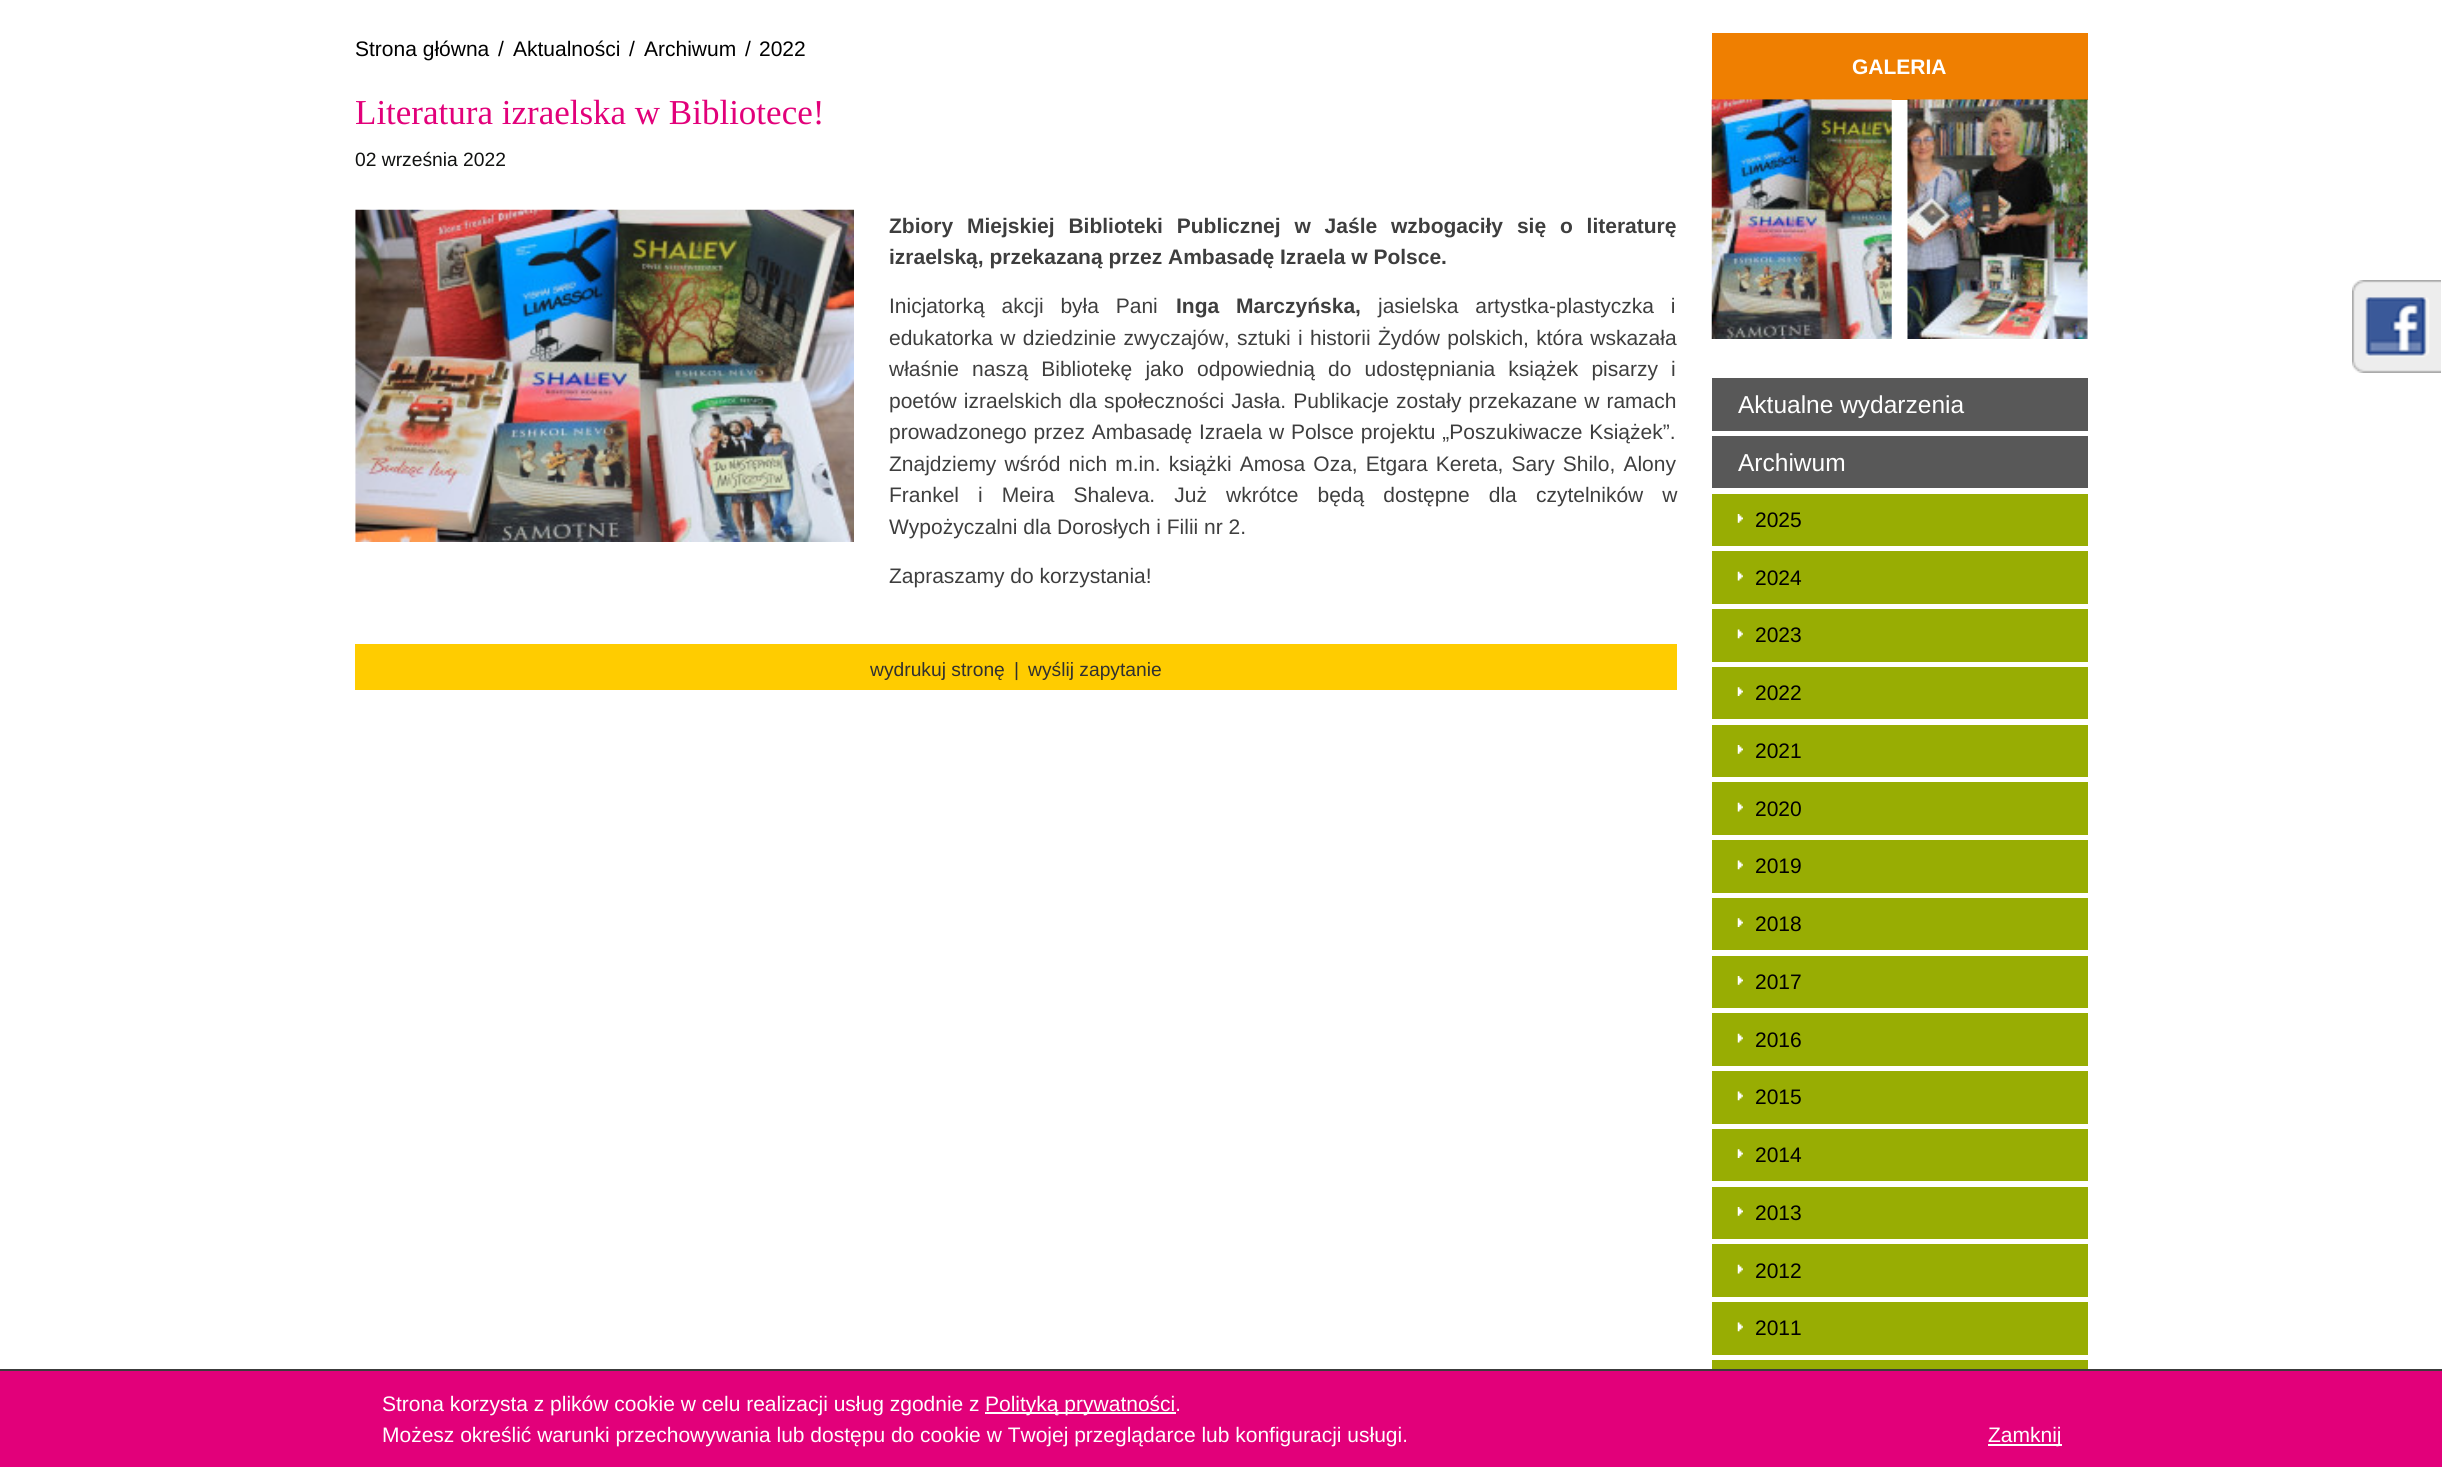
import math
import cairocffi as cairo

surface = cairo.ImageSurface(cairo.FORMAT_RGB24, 2442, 1467)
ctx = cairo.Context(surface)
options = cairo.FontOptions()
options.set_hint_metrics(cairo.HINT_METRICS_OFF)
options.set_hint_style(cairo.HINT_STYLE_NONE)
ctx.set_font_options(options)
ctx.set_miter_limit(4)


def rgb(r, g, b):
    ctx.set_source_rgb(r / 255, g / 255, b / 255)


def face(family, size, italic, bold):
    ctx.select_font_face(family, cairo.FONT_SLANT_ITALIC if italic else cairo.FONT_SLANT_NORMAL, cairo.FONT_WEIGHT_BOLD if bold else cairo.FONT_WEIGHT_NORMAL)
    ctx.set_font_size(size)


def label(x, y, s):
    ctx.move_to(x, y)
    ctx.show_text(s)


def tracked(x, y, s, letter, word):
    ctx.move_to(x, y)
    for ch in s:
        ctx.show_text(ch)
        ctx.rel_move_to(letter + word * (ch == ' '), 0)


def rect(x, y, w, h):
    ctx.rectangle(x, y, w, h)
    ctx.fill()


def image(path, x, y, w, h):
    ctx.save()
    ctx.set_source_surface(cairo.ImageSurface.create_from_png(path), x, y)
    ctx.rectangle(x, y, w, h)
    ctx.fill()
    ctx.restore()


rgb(255, 255, 255)
ctx.paint()
face('Liberation Sans', 21, 0, 0)
rgb(0, 0, 0)
label(355, 56, 'Strona główna')
label(498, 56, '/')
label(513, 56, 'Aktualności')
label(629, 56, '/')
label(644, 56, 'Archiwum')
label(745, 56, '/')
label(759, 56, '2022')
face('Liberation Serif', 35, 0, 0)
rgb(226, 0, 122)
label(355, 124, 'Literatura izraelska w Bibliotece!')
face('Liberation Sans', 19.25, 0, 0)
rgb(17, 18, 17)
label(355, 166, '02 września 2022')
image('image0.png', 355, 209, 499, 333)
face('Liberation Sans', 21, 0, 1)
rgb(62, 62, 62)
tracked(889, 233, 'Zbiory Miejskiej Biblioteki Publicznej w Jaśle wzbogaciły się o literaturę', 0, 8)
label(889, 264, 'izraelską, przekazaną przez Ambasadę Izraela w Polsce.')
face('Liberation Sans', 21, 0, 0)
tracked(889, 313, 'Inicjatorką akcji była Pani', 0, 11)
face('Liberation Sans', 21, 0, 1)
tracked(1176, 313, 'Inga Marczyńska,', 0, 11)
face('Liberation Sans', 21, 0, 0)
tracked(1378, 313, 'jasielska artystka-plastyczka i', 0, 11)
tracked(889, 345, 'edukatorka w dziedzinie zwyczajów, sztuki i historii Żydów polskich, która wskazała', 0, 1.5)
tracked(889, 376, 'właśnie naszą Bibliotekę jako odpowiednią do udostępniania książek pisarzy i', 0, 7.25)
tracked(889, 408, 'poetów izraelskich dla społeczności Jasła. Publikacje zostały przekazane w ramach', 0, 1.25)
tracked(889, 439, 'prowadzonego przez Ambasadę Izraela w Polsce projektu „Poszukiwacze Książek”.', 0, 1)
tracked(889, 471, 'Znajdziemy wśród nich m.in. książki Amosa Oza, Etgara Kereta, Sary Shilo, Alony', 0, 2.25)
tracked(889, 502, 'Frankel i Meira Shaleva. Już wkrótce będą dostępne dla czytelników w', 0, 13.25)
label(889, 534, 'Wypożyczalni dla Dorosłych i Filii nr 2.')
label(889, 583, 'Zapraszamy do korzystania!')
rgb(255, 204, 0)
rect(355, 644, 1322, 46)
face('Liberation Sans', 19.25, 0, 0)
rgb(48, 48, 48)
label(870, 676, 'wydrukuj stronę')
label(1014, 676, '|')
label(1028, 676, 'wyślij zapytanie')
rgb(239, 127, 1)
rect(1712, 33, 376, 67)
face('Liberation Sans', 21, 0, 1)
rgb(255, 255, 255)
label(1852, 74, 'GALERIA')
image('image1.png', 1711, 99, 181, 240)
image('image2.png', 1907, 99, 181, 240)
rgb(88, 88, 88)
rect(1712, 378, 376, 53)
face('Liberation Sans', 24.5, 0, 0)
rgb(255, 255, 255)
label(1738, 413, 'Aktualne wydarzenia')
rgb(88, 88, 88)
rect(1712, 436, 376, 52)
rgb(255, 255, 255)
label(1738, 471, 'Archiwum')
rgb(152, 173, 3)
rect(1712, 494, 376, 52)
image('image3.png', 1737, 514, 6, 9)
face('Liberation Sans', 21, 0, 0)
rgb(0, 0, 0)
label(1755, 527, '2025')
rgb(152, 173, 3)
rect(1712, 551, 376, 53)
image('image4.png', 1737, 571, 6, 10)
rgb(0, 0, 0)
label(1755, 585, '2024')
rgb(152, 173, 3)
rect(1712, 609, 376, 53)
image('image5.png', 1737, 629, 6, 10)
rgb(0, 0, 0)
label(1755, 642, '2023')
rgb(152, 173, 3)
rect(1712, 667, 376, 52)
image('image6.png', 1737, 687, 6, 9)
rgb(0, 0, 0)
label(1755, 700, '2022')
rgb(152, 173, 3)
rect(1712, 725, 376, 52)
image('image3.png', 1737, 745, 6, 9)
rgb(0, 0, 0)
label(1755, 758, '2021')
rgb(152, 173, 3)
rect(1712, 782, 376, 53)
image('image4.png', 1737, 802, 6, 10)
rgb(0, 0, 0)
label(1755, 816, '2020')
rgb(152, 173, 3)
rect(1712, 840, 376, 53)
image('image5.png', 1737, 860, 6, 10)
rgb(0, 0, 0)
label(1755, 873, '2019')
rgb(152, 173, 3)
rect(1712, 898, 376, 52)
image('image6.png', 1737, 918, 6, 9)
rgb(0, 0, 0)
label(1755, 931, '2018')
rgb(152, 173, 3)
rect(1712, 956, 376, 52)
image('image3.png', 1737, 976, 6, 9)
rgb(0, 0, 0)
label(1755, 989, '2017')
rgb(152, 173, 3)
rect(1712, 1013, 376, 53)
image('image4.png', 1737, 1033, 6, 10)
rgb(0, 0, 0)
label(1755, 1047, '2016')
rgb(152, 173, 3)
rect(1712, 1071, 376, 53)
image('image5.png', 1737, 1091, 6, 10)
rgb(0, 0, 0)
label(1755, 1104, '2015')
rgb(152, 173, 3)
rect(1712, 1129, 376, 52)
image('image6.png', 1737, 1149, 6, 9)
rgb(0, 0, 0)
label(1755, 1162, '2014')
rgb(152, 173, 3)
rect(1712, 1187, 376, 52)
image('image3.png', 1737, 1207, 6, 9)
rgb(0, 0, 0)
label(1755, 1220, '2013')
rgb(152, 173, 3)
rect(1712, 1244, 376, 53)
image('image4.png', 1737, 1264, 6, 10)
rgb(0, 0, 0)
label(1755, 1278, '2012')
rgb(152, 173, 3)
rect(1712, 1302, 376, 53)
image('image5.png', 1737, 1322, 6, 10)
rgb(0, 0, 0)
label(1755, 1335, '2011')
rgb(152, 173, 3)
rect(1712, 1360, 376, 9)
image('image7.png', 2352, 280, 89, 93)
rgb(226, 0, 122)
rect(0, 1371, 2442, 96)
rgb(60, 60, 60)
rect(0, 1369, 2442, 2)
rgb(255, 255, 255)
label(382, 1411, 'Strona korzysta z plików cookie w celu realizacji usług zgodnie z')
rect(985, 1412, 191, 2)
label(985, 1411, 'Polityką prywatności.')
label(382, 1442, 'Możesz określić warunki przechowywania lub dostępu do cookie w Twojej przeglądarce lub konfiguracji usługi.')
rect(1988, 1444, 74, 2)
label(1988, 1442, 'Zamknij')
surface.write_to_png('render.png')
